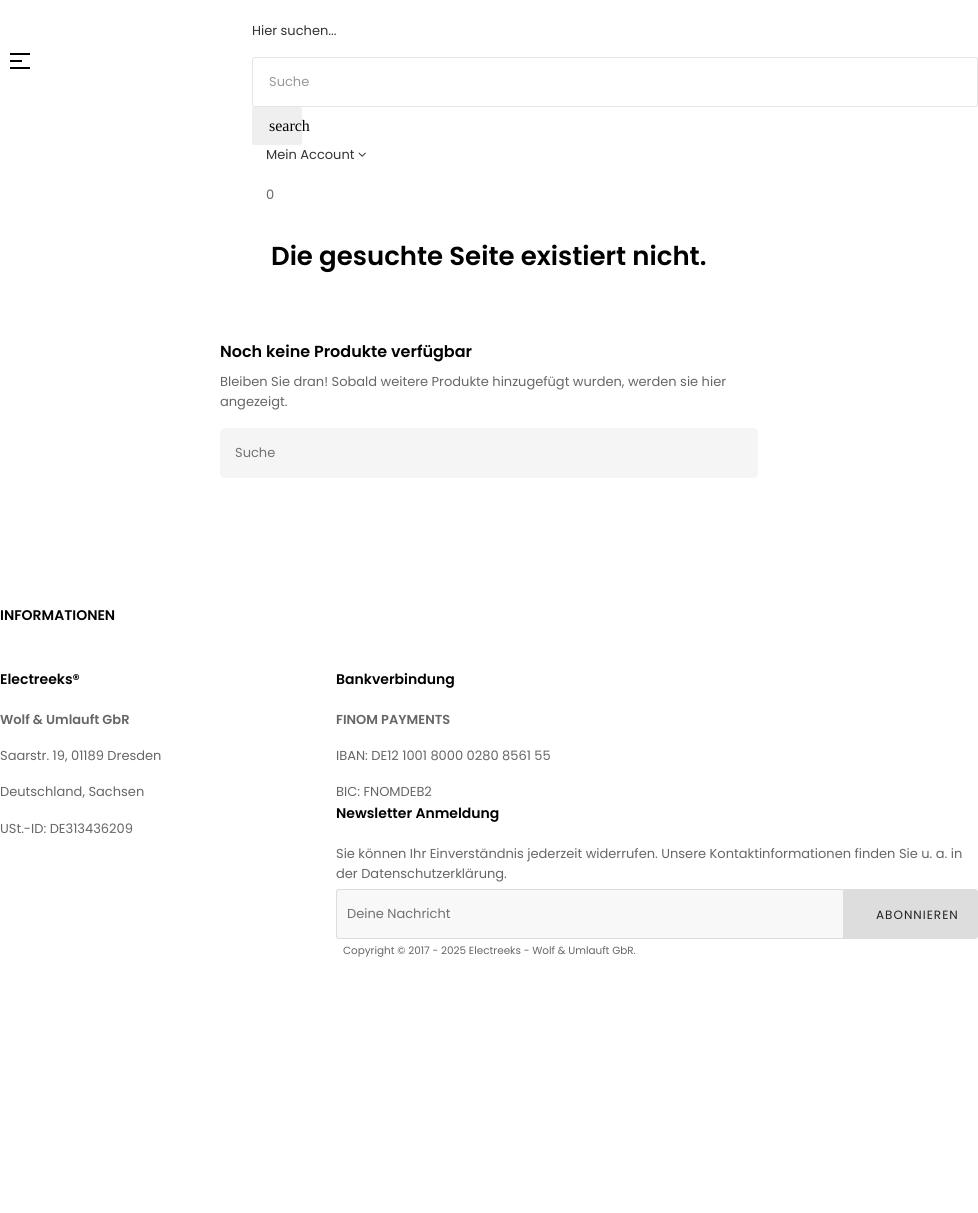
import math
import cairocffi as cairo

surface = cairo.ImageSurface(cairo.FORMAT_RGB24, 978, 1213)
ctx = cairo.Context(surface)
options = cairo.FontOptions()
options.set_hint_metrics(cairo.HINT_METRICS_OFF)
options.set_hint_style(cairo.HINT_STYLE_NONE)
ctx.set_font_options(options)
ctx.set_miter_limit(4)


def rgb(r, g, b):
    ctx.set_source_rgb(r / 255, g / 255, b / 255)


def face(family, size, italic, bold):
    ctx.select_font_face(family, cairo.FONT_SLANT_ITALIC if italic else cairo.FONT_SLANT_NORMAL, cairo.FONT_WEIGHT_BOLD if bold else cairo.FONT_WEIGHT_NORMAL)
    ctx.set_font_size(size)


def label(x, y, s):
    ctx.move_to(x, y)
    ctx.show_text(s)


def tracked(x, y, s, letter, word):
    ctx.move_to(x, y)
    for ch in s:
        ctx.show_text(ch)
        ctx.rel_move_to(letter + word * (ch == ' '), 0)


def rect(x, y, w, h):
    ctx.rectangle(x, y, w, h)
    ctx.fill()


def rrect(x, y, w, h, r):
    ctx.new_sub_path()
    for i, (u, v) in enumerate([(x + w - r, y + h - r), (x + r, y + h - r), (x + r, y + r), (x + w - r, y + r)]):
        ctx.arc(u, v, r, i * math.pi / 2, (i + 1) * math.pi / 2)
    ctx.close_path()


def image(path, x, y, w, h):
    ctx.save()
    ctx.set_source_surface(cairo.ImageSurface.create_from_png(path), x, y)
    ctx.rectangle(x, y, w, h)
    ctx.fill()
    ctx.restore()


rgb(255, 255, 255)
ctx.paint()
rgb(0, 0, 0)
rect(10, 53, 20, 2)
rect(10, 67, 20, 2)
rect(10, 60, 12, 2)
face('Poppins', 13, 0, 0)
rgb(51, 51, 51)
label(252, 35, 'Hier suchen...')
rrect(252.5, 57.5, 725, 49, 2.5)
rgb(229, 229, 229)
ctx.set_line_width(1)
ctx.stroke()
rgb(153, 153, 153)
label(269, 86, 'Suche')
rgb(239, 239, 239)
rrect(252, 107, 50, 38, 2)
ctx.fill()
face('Liberation Serif', 16, 0, 0)
rgb(0, 0, 0)
label(269, 131, 'search')
face('Poppins', 13, 0, 0)
rgb(51, 51, 51)
label(266, 159, 'Mein Account')
image('image0.png', 358, 152, 8, 5)
rgb(102, 102, 102)
label(266, 199, '0')
face('Poppins SemiBold', 26, 0, 0)
rgb(0, 0, 0)
label(271, 265, 'Die gesuchte Seite existiert nicht.')
face('Poppins SemiBold', 16, 0, 0)
label(220, 357, 'Noch keine Produkte verfügbar')
face('Poppins', 13, 0, 0)
rgb(102, 102, 102)
label(220, 386, 'Bleiben Sie dran! Sobald weitere Produkte hinzugefügt wurden, werden sie hier')
label(220, 406, 'angezeigt.')
rgb(245, 245, 245)
rrect(220, 428, 538, 50, 5)
ctx.fill()
rgb(114, 114, 114)
label(235, 457, 'Suche')
face('Poppins SemiBold', 14, 0, 0)
rgb(0, 0, 0)
label(0, 620, 'INFORMATIONEN')
label(0, 684, 'Electreeks®')
face('Poppins SemiBold', 13, 0, 0)
rgb(102, 102, 102)
label(0, 724, 'Wolf & Umlauft GbR')
face('Poppins', 13, 0, 0)
label(0, 760, 'Saarstr. 19, 01189 Dresden')
label(0, 796, 'Deutschland, Sachsen')
label(0, 833, 'USt.-ID: DE313436209')
face('Poppins SemiBold', 14, 0, 0)
rgb(0, 0, 0)
label(336, 684, 'Bankverbindung')
face('Poppins SemiBold', 13, 0, 0)
rgb(102, 102, 102)
label(336, 724, 'FINOM PAYMENTS')
face('Poppins', 13, 0, 0)
label(336, 760, 'IBAN: DE12 1001 8000 0280 8561 55')
label(336, 796, 'BIC: FNOMDEB2')
face('Poppins SemiBold', 14, 0, 0)
rgb(0, 0, 0)
label(336, 818, 'Newsletter Anmeldung')
face('Poppins', 13, 0, 0)
rgb(102, 102, 102)
label(336, 858, 'Sie können Ihr Einverständnis jederzeit widerrufen. Unsere Kontaktinformationen finden Sie u. a. in')
label(336, 878, 'der Datenschutzerklärung.')
rgb(248, 248, 248)
ctx.new_path()
ctx.move_to(339, 889)
ctx.line_to(843, 889)
ctx.line_to(843, 939)
ctx.line_to(339, 939)
ctx.curve_to(337.5, 939, 336, 937.5, 336, 936)
ctx.line_to(336, 892)
ctx.curve_to(336, 890.5, 337.5, 889, 339, 889)
ctx.close_path()
ctx.fill()
rgb(221, 221, 221)
ctx.set_fill_rule(cairo.FILL_RULE_EVEN_ODD)
ctx.new_path()
ctx.move_to(339, 889)
ctx.line_to(843, 889)
ctx.line_to(843, 939)
ctx.line_to(339, 939)
ctx.curve_to(337, 939, 336, 938, 336, 936)
ctx.line_to(336, 892)
ctx.curve_to(336, 890, 337, 889, 339, 889)
ctx.close_path()
ctx.move_to(339, 890)
ctx.line_to(843, 890)
ctx.line_to(843, 938)
ctx.line_to(339, 938)
ctx.curve_to(338, 938, 337, 937, 337, 936)
ctx.line_to(337, 892)
ctx.curve_to(337, 891, 338, 890, 339, 890)
ctx.close_path()
ctx.fill()
rgb(114, 114, 114)
label(347, 918, 'Deine Nachricht')
rgb(221, 221, 221)
ctx.new_path()
ctx.move_to(843.5, 889.5)
ctx.line_to(975, 889.5)
ctx.curve_to(976.5, 889.5, 977.5, 890.5, 977.5, 892)
ctx.line_to(977.5, 936)
ctx.curve_to(977.5, 937.5, 976.5, 938.5, 975, 938.5)
ctx.line_to(843.5, 938.5)
ctx.close_path()
ctx.fill_preserve()
ctx.stroke()
face('Poppins', 12, 0, 0)
rgb(34, 34, 34)
tracked(876, 919, 'ABONNIEREN', 1, 0)
face('Poppins', 10.4, 0, 0)
rgb(102, 102, 102)
label(343, 954, 'Copyright © 2017 - 2025 Electreeks - Wolf & Umlauft GbR.')
surface.write_to_png('render.png')
